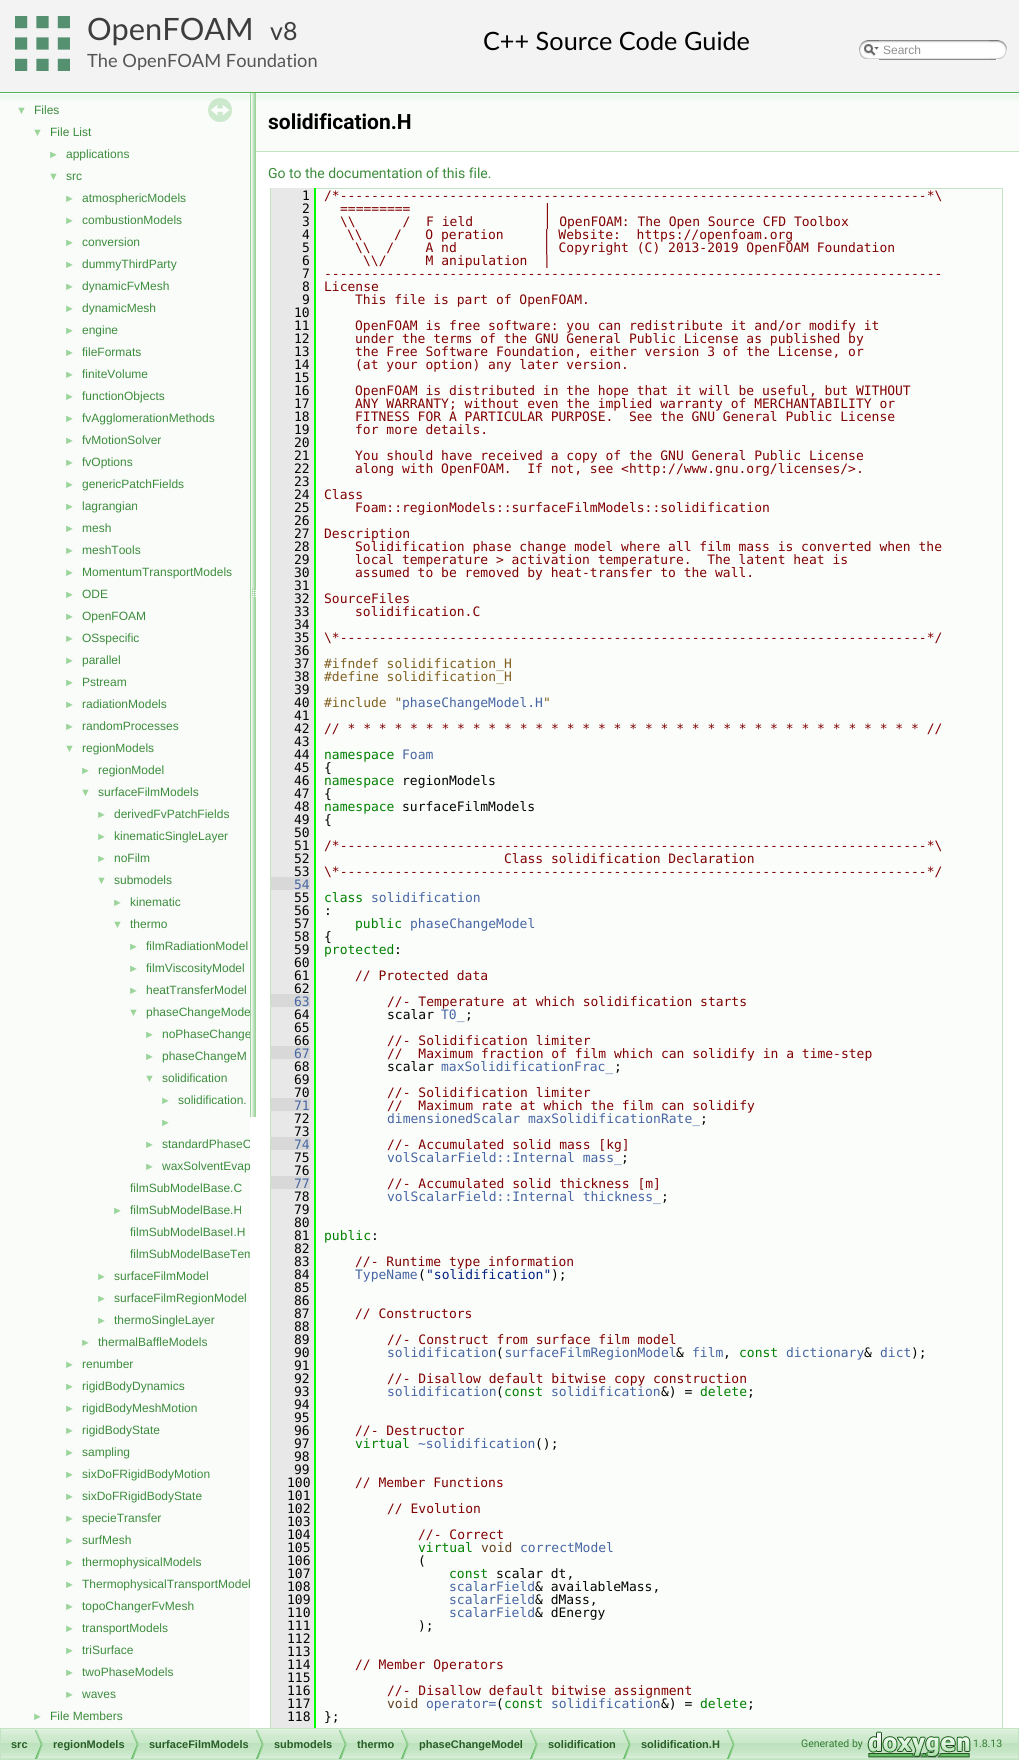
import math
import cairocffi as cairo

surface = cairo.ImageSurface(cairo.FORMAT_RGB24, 1019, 1760)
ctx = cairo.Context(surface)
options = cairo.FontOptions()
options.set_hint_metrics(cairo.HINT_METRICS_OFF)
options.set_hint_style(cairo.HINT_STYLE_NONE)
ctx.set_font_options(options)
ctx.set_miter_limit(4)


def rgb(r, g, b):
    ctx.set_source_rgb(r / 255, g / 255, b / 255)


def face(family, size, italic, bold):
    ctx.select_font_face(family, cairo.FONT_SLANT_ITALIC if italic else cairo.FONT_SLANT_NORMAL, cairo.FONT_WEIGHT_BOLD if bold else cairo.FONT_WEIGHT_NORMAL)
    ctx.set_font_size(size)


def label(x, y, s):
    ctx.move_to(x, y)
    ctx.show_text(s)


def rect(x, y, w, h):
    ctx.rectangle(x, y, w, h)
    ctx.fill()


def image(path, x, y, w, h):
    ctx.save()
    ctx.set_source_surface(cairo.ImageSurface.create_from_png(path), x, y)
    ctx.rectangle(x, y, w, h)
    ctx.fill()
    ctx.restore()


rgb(255, 255, 255)
ctx.paint()
rgb(243, 243, 243)
rect(0, 0, 1019, 92)
rgb(83, 180, 83)
rect(0, 92, 1019, 1)
image('image0.png', 15, 16, 55, 55)
face('Lato', 30.75, 0, 0)
rgb(61, 61, 61)
label(87, 40, 'OpenFOAM')
face('Lato', 25, 0, 0)
label(270, 40, 'v8')
face('Lato', 18.25, 0, 0)
rgb(85, 85, 85)
label(87, 67, 'The OpenFOAM Foundation')
image('image1.png', 859, 40, 20, 19)
image('image2.png', 864, 44, 15, 12)
image('image3.png', 879, 40, 117, 20)
face('Liberation Sans', 12, 0, 0)
rgb(144, 144, 144)
label(883, 54, 'Search')
image('image4.png', 989, 40, 18, 19)
face('Lato', 25.25, 0, 0)
rgb(0, 0, 0)
label(483, 50, 'C++ Source Code Guide')
rgb(249, 252, 249)
rect(0, 101, 250, 1627)
image('image5.png', 0, 93, 250, 8)
image('image6.png', 208, 98, 24, 24)
face('Liberation Sans', 11, 0, 0)
rgb(156, 212, 156)
label(16, 114, '▼')
face('Liberation Sans', 12, 0, 0)
rgb(61, 140, 61)
label(34, 114, 'Files')
face('Liberation Sans', 11, 0, 0)
rgb(156, 212, 156)
label(32, 136, '▼')
face('Liberation Sans', 12, 0, 0)
rgb(61, 140, 61)
label(50, 136, 'File List')
face('Liberation Sans', 11, 0, 0)
rgb(156, 212, 156)
label(48, 158, '►')
face('Liberation Sans', 12, 0, 0)
rgb(61, 140, 61)
label(66, 158, 'applications')
face('Liberation Sans', 11, 0, 0)
rgb(156, 212, 156)
label(48, 180, '▼')
face('Liberation Sans', 12, 0, 0)
rgb(61, 140, 61)
label(66, 180, 'src')
face('Liberation Sans', 11, 0, 0)
rgb(156, 212, 156)
label(64, 202, '►')
face('Liberation Sans', 12, 0, 0)
rgb(61, 140, 61)
label(82, 202, 'atmosphericModels')
face('Liberation Sans', 11, 0, 0)
rgb(156, 212, 156)
label(64, 224, '►')
face('Liberation Sans', 12, 0, 0)
rgb(61, 140, 61)
label(82, 224, 'combustionModels')
face('Liberation Sans', 11, 0, 0)
rgb(156, 212, 156)
label(64, 246, '►')
face('Liberation Sans', 12, 0, 0)
rgb(61, 140, 61)
label(82, 246, 'conversion')
face('Liberation Sans', 11, 0, 0)
rgb(156, 212, 156)
label(64, 268, '►')
face('Liberation Sans', 12, 0, 0)
rgb(61, 140, 61)
label(82, 268, 'dummyThirdParty')
face('Liberation Sans', 11, 0, 0)
rgb(156, 212, 156)
label(64, 290, '►')
face('Liberation Sans', 12, 0, 0)
rgb(61, 140, 61)
label(82, 290, 'dynamicFvMesh')
face('Liberation Sans', 11, 0, 0)
rgb(156, 212, 156)
label(64, 312, '►')
face('Liberation Sans', 12, 0, 0)
rgb(61, 140, 61)
label(82, 312, 'dynamicMesh')
face('Liberation Sans', 11, 0, 0)
rgb(156, 212, 156)
label(64, 334, '►')
face('Liberation Sans', 12, 0, 0)
rgb(61, 140, 61)
label(82, 334, 'engine')
face('Liberation Sans', 11, 0, 0)
rgb(156, 212, 156)
label(64, 356, '►')
face('Liberation Sans', 12, 0, 0)
rgb(61, 140, 61)
label(82, 356, 'fileFormats')
face('Liberation Sans', 11, 0, 0)
rgb(156, 212, 156)
label(64, 378, '►')
face('Liberation Sans', 12, 0, 0)
rgb(61, 140, 61)
label(82, 378, 'finiteVolume')
face('Liberation Sans', 11, 0, 0)
rgb(156, 212, 156)
label(64, 400, '►')
face('Liberation Sans', 12, 0, 0)
rgb(61, 140, 61)
label(82, 400, 'functionObjects')
face('Liberation Sans', 11, 0, 0)
rgb(156, 212, 156)
label(64, 422, '►')
face('Liberation Sans', 12, 0, 0)
rgb(61, 140, 61)
label(82, 422, 'fvAgglomerationMethods')
face('Liberation Sans', 11, 0, 0)
rgb(156, 212, 156)
label(64, 444, '►')
face('Liberation Sans', 12, 0, 0)
rgb(61, 140, 61)
label(82, 444, 'fvMotionSolver')
face('Liberation Sans', 11, 0, 0)
rgb(156, 212, 156)
label(64, 466, '►')
face('Liberation Sans', 12, 0, 0)
rgb(61, 140, 61)
label(82, 466, 'fvOptions')
face('Liberation Sans', 11, 0, 0)
rgb(156, 212, 156)
label(64, 488, '►')
face('Liberation Sans', 12, 0, 0)
rgb(61, 140, 61)
label(82, 488, 'genericPatchFields')
face('Liberation Sans', 11, 0, 0)
rgb(156, 212, 156)
label(64, 510, '►')
face('Liberation Sans', 12, 0, 0)
rgb(61, 140, 61)
label(82, 510, 'lagrangian')
face('Liberation Sans', 11, 0, 0)
rgb(156, 212, 156)
label(64, 532, '►')
face('Liberation Sans', 12, 0, 0)
rgb(61, 140, 61)
label(82, 532, 'mesh')
face('Liberation Sans', 11, 0, 0)
rgb(156, 212, 156)
label(64, 554, '►')
face('Liberation Sans', 12, 0, 0)
rgb(61, 140, 61)
label(82, 554, 'meshTools')
face('Liberation Sans', 11, 0, 0)
rgb(156, 212, 156)
label(64, 576, '►')
face('Liberation Sans', 12, 0, 0)
rgb(61, 140, 61)
label(82, 576, 'MomentumTransportModels')
face('Liberation Sans', 11, 0, 0)
rgb(156, 212, 156)
label(64, 598, '►')
face('Liberation Sans', 12, 0, 0)
rgb(61, 140, 61)
label(82, 598, 'ODE')
face('Liberation Sans', 11, 0, 0)
rgb(156, 212, 156)
label(64, 620, '►')
face('Liberation Sans', 12, 0, 0)
rgb(61, 140, 61)
label(82, 620, 'OpenFOAM')
face('Liberation Sans', 11, 0, 0)
rgb(156, 212, 156)
label(64, 642, '►')
face('Liberation Sans', 12, 0, 0)
rgb(61, 140, 61)
label(82, 642, 'OSspecific')
face('Liberation Sans', 11, 0, 0)
rgb(156, 212, 156)
label(64, 664, '►')
face('Liberation Sans', 12, 0, 0)
rgb(61, 140, 61)
label(82, 664, 'parallel')
face('Liberation Sans', 11, 0, 0)
rgb(156, 212, 156)
label(64, 686, '►')
face('Liberation Sans', 12, 0, 0)
rgb(61, 140, 61)
label(82, 686, 'Pstream')
face('Liberation Sans', 11, 0, 0)
rgb(156, 212, 156)
label(64, 708, '►')
face('Liberation Sans', 12, 0, 0)
rgb(61, 140, 61)
label(82, 708, 'radiationModels')
face('Liberation Sans', 11, 0, 0)
rgb(156, 212, 156)
label(64, 730, '►')
face('Liberation Sans', 12, 0, 0)
rgb(61, 140, 61)
label(82, 730, 'randomProcesses')
face('Liberation Sans', 11, 0, 0)
rgb(156, 212, 156)
label(64, 752, '▼')
face('Liberation Sans', 12, 0, 0)
rgb(61, 140, 61)
label(82, 752, 'regionModels')
face('Liberation Sans', 11, 0, 0)
rgb(156, 212, 156)
label(80, 774, '►')
face('Liberation Sans', 12, 0, 0)
rgb(61, 140, 61)
label(98, 774, 'regionModel')
face('Liberation Sans', 11, 0, 0)
rgb(156, 212, 156)
label(80, 796, '▼')
face('Liberation Sans', 12, 0, 0)
rgb(61, 140, 61)
label(98, 796, 'surfaceFilmModels')
face('Liberation Sans', 11, 0, 0)
rgb(156, 212, 156)
label(96, 818, '►')
face('Liberation Sans', 12, 0, 0)
rgb(61, 140, 61)
label(114, 818, 'derivedFvPatchFields')
face('Liberation Sans', 11, 0, 0)
rgb(156, 212, 156)
label(96, 840, '►')
face('Liberation Sans', 12, 0, 0)
rgb(61, 140, 61)
label(114, 840, 'kinematicSingleLayer')
face('Liberation Sans', 11, 0, 0)
rgb(156, 212, 156)
label(96, 862, '►')
face('Liberation Sans', 12, 0, 0)
rgb(61, 140, 61)
label(114, 862, 'noFilm')
face('Liberation Sans', 11, 0, 0)
rgb(156, 212, 156)
label(96, 884, '▼')
face('Liberation Sans', 12, 0, 0)
rgb(61, 140, 61)
label(114, 884, 'submodels')
face('Liberation Sans', 11, 0, 0)
rgb(156, 212, 156)
label(112, 906, '►')
face('Liberation Sans', 12, 0, 0)
rgb(61, 140, 61)
label(130, 906, 'kinematic')
face('Liberation Sans', 11, 0, 0)
rgb(156, 212, 156)
label(112, 928, '▼')
face('Liberation Sans', 12, 0, 0)
rgb(61, 140, 61)
label(130, 928, 'thermo')
face('Liberation Sans', 11, 0, 0)
rgb(156, 212, 156)
label(128, 950, '►')
face('Liberation Sans', 12, 0, 0)
rgb(61, 140, 61)
label(146, 950, 'filmRadiationModel')
face('Liberation Sans', 11, 0, 0)
rgb(156, 212, 156)
label(128, 972, '►')
face('Liberation Sans', 12, 0, 0)
rgb(61, 140, 61)
label(146, 972, 'filmViscosityModel')
face('Liberation Sans', 11, 0, 0)
rgb(156, 212, 156)
label(128, 994, '►')
face('Liberation Sans', 12, 0, 0)
rgb(61, 140, 61)
label(146, 994, 'heatTransferModel')
face('Liberation Sans', 11, 0, 0)
rgb(156, 212, 156)
label(128, 1016, '▼')
face('Liberation Sans', 12, 0, 0)
rgb(61, 140, 61)
label(146, 1016, 'phaseChangeMode')
face('Liberation Sans', 11, 0, 0)
rgb(156, 212, 156)
label(144, 1038, '►')
face('Liberation Sans', 12, 0, 0)
rgb(61, 140, 61)
label(162, 1038, 'noPhaseChange')
face('Liberation Sans', 11, 0, 0)
rgb(156, 212, 156)
label(144, 1060, '►')
face('Liberation Sans', 12, 0, 0)
rgb(61, 140, 61)
label(162, 1060, 'phaseChangeM')
face('Liberation Sans', 11, 0, 0)
rgb(156, 212, 156)
label(144, 1082, '▼')
face('Liberation Sans', 12, 0, 0)
rgb(61, 140, 61)
label(162, 1082, 'solidification')
face('Liberation Sans', 11, 0, 0)
rgb(156, 212, 156)
label(160, 1104, '►')
face('Liberation Sans', 12, 0, 0)
rgb(61, 140, 61)
label(178, 1104, 'solidification.')
face('Liberation Sans', 11, 0, 0)
rgb(156, 212, 156)
label(160, 1126, '►')
label(144, 1148, '►')
ctx.save()
ctx.rectangle(0, 93, 250, 1635)
ctx.clip()
face('Liberation Sans', 12, 0, 0)
rgb(61, 140, 61)
label(162, 1148, 'standardPhaseC')
ctx.restore()
label(144, 1170, '►')
ctx.save()
ctx.rectangle(0, 93, 250, 1635)
ctx.clip()
face('Liberation Sans', 12, 0, 0)
rgb(61, 140, 61)
label(162, 1170, 'waxSolventEvap')
ctx.restore()
face('Liberation Sans', 12, 0, 0)
rgb(61, 140, 61)
label(130, 1192, 'filmSubModelBase.C')
face('Liberation Sans', 11, 0, 0)
rgb(156, 212, 156)
label(112, 1214, '►')
face('Liberation Sans', 12, 0, 0)
rgb(61, 140, 61)
label(130, 1214, 'filmSubModelBase.H')
label(130, 1236, 'filmSubModelBaseI.H')
ctx.save()
ctx.rectangle(0, 93, 250, 1635)
ctx.clip()
label(130, 1258, 'filmSubModelBaseTem')
ctx.restore()
face('Liberation Sans', 11, 0, 0)
rgb(156, 212, 156)
label(96, 1280, '►')
face('Liberation Sans', 12, 0, 0)
rgb(61, 140, 61)
label(114, 1280, 'surfaceFilmModel')
face('Liberation Sans', 11, 0, 0)
rgb(156, 212, 156)
label(96, 1302, '►')
face('Liberation Sans', 12, 0, 0)
rgb(61, 140, 61)
label(114, 1302, 'surfaceFilmRegionModel')
face('Liberation Sans', 11, 0, 0)
rgb(156, 212, 156)
label(96, 1324, '►')
face('Liberation Sans', 12, 0, 0)
rgb(61, 140, 61)
label(114, 1324, 'thermoSingleLayer')
face('Liberation Sans', 11, 0, 0)
rgb(156, 212, 156)
label(80, 1346, '►')
face('Liberation Sans', 12, 0, 0)
rgb(61, 140, 61)
label(98, 1346, 'thermalBaffleModels')
face('Liberation Sans', 11, 0, 0)
rgb(156, 212, 156)
label(64, 1368, '►')
face('Liberation Sans', 12, 0, 0)
rgb(61, 140, 61)
label(82, 1368, 'renumber')
face('Liberation Sans', 11, 0, 0)
rgb(156, 212, 156)
label(64, 1390, '►')
face('Liberation Sans', 12, 0, 0)
rgb(61, 140, 61)
label(82, 1390, 'rigidBodyDynamics')
face('Liberation Sans', 11, 0, 0)
rgb(156, 212, 156)
label(64, 1412, '►')
face('Liberation Sans', 12, 0, 0)
rgb(61, 140, 61)
label(82, 1412, 'rigidBodyMeshMotion')
face('Liberation Sans', 11, 0, 0)
rgb(156, 212, 156)
label(64, 1434, '►')
face('Liberation Sans', 12, 0, 0)
rgb(61, 140, 61)
label(82, 1434, 'rigidBodyState')
face('Liberation Sans', 11, 0, 0)
rgb(156, 212, 156)
label(64, 1456, '►')
face('Liberation Sans', 12, 0, 0)
rgb(61, 140, 61)
label(82, 1456, 'sampling')
face('Liberation Sans', 11, 0, 0)
rgb(156, 212, 156)
label(64, 1478, '►')
face('Liberation Sans', 12, 0, 0)
rgb(61, 140, 61)
label(82, 1478, 'sixDoFRigidBodyMotion')
face('Liberation Sans', 11, 0, 0)
rgb(156, 212, 156)
label(64, 1500, '►')
face('Liberation Sans', 12, 0, 0)
rgb(61, 140, 61)
label(82, 1500, 'sixDoFRigidBodyState')
face('Liberation Sans', 11, 0, 0)
rgb(156, 212, 156)
label(64, 1522, '►')
face('Liberation Sans', 12, 0, 0)
rgb(61, 140, 61)
label(82, 1522, 'specieTransfer')
face('Liberation Sans', 11, 0, 0)
rgb(156, 212, 156)
label(64, 1544, '►')
face('Liberation Sans', 12, 0, 0)
rgb(61, 140, 61)
label(82, 1544, 'surfMesh')
face('Liberation Sans', 11, 0, 0)
rgb(156, 212, 156)
label(64, 1566, '►')
face('Liberation Sans', 12, 0, 0)
rgb(61, 140, 61)
label(82, 1566, 'thermophysicalModels')
face('Liberation Sans', 11, 0, 0)
rgb(156, 212, 156)
label(64, 1588, '►')
face('Liberation Sans', 12, 0, 0)
rgb(61, 140, 61)
label(82, 1588, 'ThermophysicalTransportModel')
face('Liberation Sans', 11, 0, 0)
rgb(156, 212, 156)
label(64, 1610, '►')
face('Liberation Sans', 12, 0, 0)
rgb(61, 140, 61)
label(82, 1610, 'topoChangerFvMesh')
face('Liberation Sans', 11, 0, 0)
rgb(156, 212, 156)
label(64, 1632, '►')
face('Liberation Sans', 12, 0, 0)
rgb(61, 140, 61)
label(82, 1632, 'transportModels')
face('Liberation Sans', 11, 0, 0)
rgb(156, 212, 156)
label(64, 1654, '►')
face('Liberation Sans', 12, 0, 0)
rgb(61, 140, 61)
label(82, 1654, 'triSurface')
face('Liberation Sans', 11, 0, 0)
rgb(156, 212, 156)
label(64, 1676, '►')
face('Liberation Sans', 12, 0, 0)
rgb(61, 140, 61)
label(82, 1676, 'twoPhaseModels')
face('Liberation Sans', 11, 0, 0)
rgb(156, 212, 156)
label(64, 1698, '►')
face('Liberation Sans', 12, 0, 0)
rgb(61, 140, 61)
label(82, 1698, 'waves')
face('Liberation Sans', 11, 0, 0)
rgb(156, 212, 156)
label(32, 1720, '►')
face('Liberation Sans', 12, 0, 0)
rgb(61, 140, 61)
label(50, 1720, 'File Members')
image('image7.png', 250, 93, 6, 1024)
rgb(249, 252, 249)
rect(256, 101, 763, 50)
image('image8.png', 256, 93, 763, 8)
rgb(196, 229, 196)
rect(256, 151, 763, 1)
face('Roboto', 21, 0, 1)
rgb(0, 0, 0)
label(268, 129, 'solidification.H')
face('Roboto', 14, 0, 0)
rgb(61, 140, 61)
label(268, 178, 'Go to the documentation of this file.')
rgb(251, 253, 251)
rect(316, 189, 686, 1539)
ctx.rectangle(270.5, 188.5, 732, 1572)
rgb(196, 229, 196)
ctx.set_line_width(1)
ctx.stroke()
rgb(232, 232, 232)
rect(271, 188, 43, 689)
face('DejaVu Sans Mono', 13, 0, 0)
rgb(0, 0, 0)
label(302, 200, '1')
rgb(0, 255, 0)
rect(314, 188, 2, 1172)
rgb(128, 0, 0)
label(324, 200, '/*---------------------------------------------------------------------------*\\')
rgb(0, 0, 0)
label(302, 213, '2')
rgb(128, 0, 0)
label(340, 213, '=========                 |')
rgb(0, 0, 0)
label(302, 226, '3')
rgb(128, 0, 0)
label(340, 226, '\\\\      /  F ield         | OpenFOAM: The Open Source CFD Toolbox')
rgb(0, 0, 0)
label(302, 239, '4')
rgb(128, 0, 0)
label(347, 239, '\\\\    /   O peration     | Website:  https://openfoam.org')
rgb(0, 0, 0)
label(302, 252, '5')
rgb(128, 0, 0)
label(355, 252, '\\\\  /    A nd           | Copyright (C) 2013-2019 OpenFOAM Foundation')
rgb(0, 0, 0)
label(302, 265, '6')
rgb(128, 0, 0)
label(363, 265, '\\\\/     M anipulation  |')
rgb(0, 0, 0)
label(302, 278, '7')
rgb(128, 0, 0)
label(324, 278, '-------------------------------------------------------------------------------')
rgb(0, 0, 0)
label(302, 291, '8')
rgb(128, 0, 0)
label(324, 291, 'License')
rgb(0, 0, 0)
label(302, 304, '9')
rgb(128, 0, 0)
label(355, 304, 'This file is part of OpenFOAM.')
rgb(0, 0, 0)
label(294, 317, '10')
label(294, 330, '11')
rgb(128, 0, 0)
label(355, 330, 'OpenFOAM is free software: you can redistribute it and/or modify it')
rgb(0, 0, 0)
label(294, 343, '12')
rgb(128, 0, 0)
label(355, 343, 'under the terms of the GNU General Public License as published by')
rgb(0, 0, 0)
label(294, 356, '13')
rgb(128, 0, 0)
label(355, 356, 'the Free Software Foundation, either version 3 of the License, or')
rgb(0, 0, 0)
label(294, 369, '14')
rgb(128, 0, 0)
label(355, 369, '(at your option) any later version.')
rgb(0, 0, 0)
label(294, 382, '15')
label(294, 395, '16')
rgb(128, 0, 0)
label(355, 395, 'OpenFOAM is distributed in the hope that it will be useful, but WITHOUT')
rgb(0, 0, 0)
label(294, 408, '17')
rgb(128, 0, 0)
label(355, 408, 'ANY WARRANTY; without even the implied warranty of MERCHANTABILITY or')
rgb(0, 0, 0)
label(294, 421, '18')
rgb(128, 0, 0)
label(355, 421, 'FITNESS FOR A PARTICULAR PURPOSE.  See the GNU General Public License')
rgb(0, 0, 0)
label(294, 434, '19')
rgb(128, 0, 0)
label(355, 434, 'for more details.')
rgb(0, 0, 0)
label(294, 447, '20')
label(294, 460, '21')
rgb(128, 0, 0)
label(355, 460, 'You should have received a copy of the GNU General Public License')
rgb(0, 0, 0)
label(294, 473, '22')
rgb(128, 0, 0)
label(355, 473, 'along with OpenFOAM.  If not, see <http://www.gnu.org/licenses/>.')
rgb(0, 0, 0)
label(294, 486, '23')
label(294, 499, '24')
rgb(128, 0, 0)
label(324, 499, 'Class')
rgb(0, 0, 0)
label(294, 512, '25')
rgb(128, 0, 0)
label(355, 512, 'Foam::regionModels::surfaceFilmModels::solidification')
rgb(0, 0, 0)
label(294, 525, '26')
label(294, 538, '27')
rgb(128, 0, 0)
label(324, 538, 'Description')
rgb(0, 0, 0)
label(294, 551, '28')
rgb(128, 0, 0)
label(355, 551, 'Solidification phase change model where all film mass is converted when the')
rgb(0, 0, 0)
label(294, 564, '29')
rgb(128, 0, 0)
label(355, 564, 'local temperature > activation temperature.  The latent heat is')
rgb(0, 0, 0)
label(294, 577, '30')
rgb(128, 0, 0)
label(355, 577, 'assumed to be removed by heat-transfer to the wall.')
rgb(0, 0, 0)
label(294, 590, '31')
label(294, 603, '32')
rgb(128, 0, 0)
label(324, 603, 'SourceFiles')
rgb(0, 0, 0)
label(294, 616, '33')
rgb(128, 0, 0)
label(355, 616, 'solidification.C')
rgb(0, 0, 0)
label(294, 629, '34')
label(294, 642, '35')
rgb(128, 0, 0)
label(324, 642, '\\*---------------------------------------------------------------------------*/')
rgb(0, 0, 0)
label(294, 655, '36')
label(294, 668, '37')
rgb(128, 96, 32)
label(324, 668, '#ifndef solidification_H')
rgb(0, 0, 0)
label(294, 681, '38')
rgb(128, 96, 32)
label(324, 681, '#define solidification_H')
rgb(0, 0, 0)
label(294, 694, '39')
label(294, 707, '40')
rgb(128, 96, 32)
label(324, 707, '#include "')
rgb(70, 101, 162)
label(402, 707, 'phaseChangeModel.H')
rgb(128, 96, 32)
label(543, 707, '"')
rgb(0, 0, 0)
label(294, 720, '41')
label(294, 733, '42')
rgb(128, 0, 0)
label(324, 733, '// * * * * * * * * * * * * * * * * * * * * * * * * * * * * * * * * * * * * * //')
rgb(0, 0, 0)
label(294, 746, '43')
label(294, 759, '44')
rgb(0, 128, 0)
label(324, 759, 'namespace')
rgb(70, 101, 162)
label(402, 759, 'Foam')
rgb(0, 0, 0)
label(294, 772, '45')
label(324, 772, '{')
label(294, 785, '46')
rgb(0, 128, 0)
label(324, 785, 'namespace')
rgb(0, 0, 0)
label(402, 785, 'regionModels')
label(294, 798, '47')
label(324, 798, '{')
label(294, 811, '48')
rgb(0, 128, 0)
label(324, 811, 'namespace')
rgb(0, 0, 0)
label(402, 811, 'surfaceFilmModels')
label(294, 824, '49')
label(324, 824, '{')
label(294, 837, '50')
label(294, 850, '51')
rgb(128, 0, 0)
label(324, 850, '/*---------------------------------------------------------------------------*\\')
rgb(0, 0, 0)
label(294, 863, '52')
rgb(128, 0, 0)
label(504, 863, 'Class solidification Declaration')
rgb(0, 0, 0)
label(294, 876, '53')
rgb(128, 0, 0)
label(324, 876, '\\*---------------------------------------------------------------------------*/')
rgb(216, 216, 216)
rect(271, 877, 39, 13)
rgb(70, 101, 162)
label(294, 889, '54')
rgb(232, 232, 232)
rect(310, 877, 4, 13)
rect(271, 890, 43, 104)
rgb(0, 0, 0)
label(294, 902, '55')
rgb(0, 128, 0)
label(324, 902, 'class')
rgb(70, 101, 162)
label(371, 902, 'solidification')
rgb(0, 0, 0)
label(294, 915, '56')
label(324, 915, ':')
label(294, 928, '57')
rgb(0, 128, 0)
label(355, 928, 'public')
rgb(70, 101, 162)
label(410, 928, 'phaseChangeModel')
rgb(0, 0, 0)
label(294, 941, '58')
label(324, 941, '{')
label(294, 954, '59')
rgb(0, 128, 0)
label(324, 954, 'protected')
rgb(0, 0, 0)
label(394, 954, ':')
label(294, 967, '60')
label(294, 980, '61')
rgb(128, 0, 0)
label(355, 980, '// Protected data')
rgb(0, 0, 0)
label(294, 993, '62')
rgb(216, 216, 216)
rect(271, 994, 39, 13)
rgb(70, 101, 162)
label(294, 1006, '63')
rgb(232, 232, 232)
rect(310, 994, 4, 13)
rgb(128, 0, 0)
label(387, 1006, '//- Temperature at which solidification starts')
rgb(232, 232, 232)
rect(271, 1007, 43, 39)
rgb(0, 0, 0)
label(294, 1019, '64')
label(387, 1019, 'scalar')
rgb(70, 101, 162)
label(441, 1019, 'T0_')
rgb(0, 0, 0)
label(465, 1019, ';')
label(294, 1032, '65')
label(294, 1045, '66')
rgb(128, 0, 0)
label(387, 1045, '//- Solidification limiter')
rgb(216, 216, 216)
rect(271, 1046, 39, 13)
rgb(70, 101, 162)
label(294, 1058, '67')
rgb(232, 232, 232)
rect(310, 1046, 4, 13)
rgb(128, 0, 0)
label(387, 1058, '//  Maximum fraction of film which can solidify in a time-step')
rgb(232, 232, 232)
rect(271, 1059, 43, 39)
rgb(0, 0, 0)
label(294, 1071, '68')
label(387, 1071, 'scalar')
rgb(70, 101, 162)
label(441, 1071, 'maxSolidificationFrac_')
rgb(0, 0, 0)
label(614, 1071, ';')
label(294, 1084, '69')
label(294, 1097, '70')
rgb(128, 0, 0)
label(387, 1097, '//- Solidification limiter')
rgb(216, 216, 216)
rect(271, 1098, 39, 13)
rgb(70, 101, 162)
label(294, 1110, '71')
rgb(232, 232, 232)
rect(310, 1098, 4, 13)
rgb(128, 0, 0)
label(387, 1110, '//  Maximum rate at which the film can solidify')
rgb(232, 232, 232)
rect(271, 1111, 43, 26)
rgb(0, 0, 0)
label(294, 1123, '72')
rgb(70, 101, 162)
label(387, 1123, 'dimensionedScalar maxSolidificationRate_')
rgb(0, 0, 0)
label(700, 1123, ';')
label(294, 1136, '73')
rgb(216, 216, 216)
rect(271, 1137, 39, 13)
rgb(70, 101, 162)
label(294, 1149, '74')
rgb(232, 232, 232)
rect(310, 1137, 4, 13)
rgb(128, 0, 0)
label(387, 1149, '//- Accumulated solid mass [kg]')
rgb(232, 232, 232)
rect(271, 1150, 43, 26)
rgb(0, 0, 0)
label(294, 1162, '75')
rgb(70, 101, 162)
label(387, 1162, 'volScalarField::Internal mass_')
rgb(0, 0, 0)
label(621, 1162, ';')
label(294, 1175, '76')
rgb(216, 216, 216)
rect(271, 1176, 39, 13)
rgb(70, 101, 162)
label(294, 1188, '77')
rgb(232, 232, 232)
rect(310, 1176, 4, 13)
rgb(128, 0, 0)
label(387, 1188, '//- Accumulated solid thickness [m]')
rgb(232, 232, 232)
rect(271, 1189, 43, 533)
rgb(0, 0, 0)
label(294, 1201, '78')
rgb(70, 101, 162)
label(387, 1201, 'volScalarField::Internal thickness_')
rgb(0, 0, 0)
label(661, 1201, ';')
label(294, 1214, '79')
label(294, 1227, '80')
label(294, 1240, '81')
rgb(0, 128, 0)
label(324, 1240, 'public')
rgb(0, 0, 0)
label(371, 1240, ':')
label(294, 1253, '82')
label(294, 1266, '83')
rgb(128, 0, 0)
label(355, 1266, '//- Runtime type information')
rgb(0, 0, 0)
label(294, 1279, '84')
rgb(70, 101, 162)
label(355, 1279, 'TypeName')
rgb(0, 0, 0)
label(418, 1279, '(')
rgb(0, 32, 128)
label(426, 1279, '"solidification"')
rgb(0, 0, 0)
label(551, 1279, ');')
label(294, 1292, '85')
label(294, 1305, '86')
label(294, 1318, '87')
rgb(128, 0, 0)
label(355, 1318, '// Constructors')
rgb(0, 0, 0)
label(294, 1331, '88')
label(294, 1344, '89')
rgb(128, 0, 0)
label(387, 1344, '//- Construct from surface film model')
rgb(0, 0, 0)
label(294, 1357, '90')
rgb(70, 101, 162)
label(387, 1357, 'solidification surfaceFilmRegionModel')
rgb(0, 0, 0)
label(496, 1357, '(')
label(676, 1357, '&')
rgb(70, 101, 162)
label(692, 1357, 'film')
rgb(0, 0, 0)
label(723, 1357, ',')
rgb(0, 128, 0)
label(739, 1357, 'const')
rgb(70, 101, 162)
label(786, 1357, 'dictionary')
rgb(0, 0, 0)
label(864, 1357, '&')
rgb(70, 101, 162)
label(880, 1357, 'dict')
rgb(0, 0, 0)
label(911, 1357, ');')
label(294, 1370, '91')
rgb(0, 255, 0)
rect(314, 1358, 2, 366)
rgb(0, 0, 0)
label(294, 1383, '92')
rgb(128, 0, 0)
label(387, 1383, '//- Disallow default bitwise copy construction')
rgb(0, 0, 0)
label(294, 1396, '93')
rgb(70, 101, 162)
label(387, 1396, 'solidification')
rgb(0, 0, 0)
label(496, 1396, '(')
rgb(0, 128, 0)
label(504, 1396, 'const')
rgb(70, 101, 162)
label(551, 1396, 'solidification')
rgb(0, 0, 0)
label(661, 1396, '&) =')
rgb(0, 128, 0)
label(700, 1396, 'delete')
rgb(0, 0, 0)
label(747, 1396, ';')
label(294, 1409, '94')
label(294, 1422, '95')
label(294, 1435, '96')
rgb(128, 0, 0)
label(355, 1435, '//- Destructor')
rgb(0, 0, 0)
label(294, 1448, '97')
rgb(0, 128, 0)
label(355, 1448, 'virtual')
rgb(70, 101, 162)
label(418, 1448, '~solidification')
rgb(0, 0, 0)
label(535, 1448, '();')
label(294, 1461, '98')
label(294, 1474, '99')
label(287, 1487, '100')
rgb(128, 0, 0)
label(355, 1487, '// Member Functions')
rgb(0, 0, 0)
label(287, 1500, '101')
label(287, 1513, '102')
rgb(128, 0, 0)
label(387, 1513, '// Evolution')
rgb(0, 0, 0)
label(287, 1526, '103')
label(287, 1539, '104')
rgb(128, 0, 0)
label(418, 1539, '//- Correct')
rgb(0, 0, 0)
label(287, 1552, '105')
rgb(0, 128, 0)
label(418, 1552, 'virtual')
rgb(96, 64, 32)
label(481, 1552, 'void')
rgb(70, 101, 162)
label(520, 1552, 'correctModel')
rgb(0, 0, 0)
label(287, 1565, '106')
label(418, 1565, '(')
label(287, 1578, '107')
rgb(0, 128, 0)
label(449, 1578, 'const')
rgb(0, 0, 0)
label(496, 1578, 'scalar dt,')
label(287, 1591, '108')
rgb(70, 101, 162)
label(449, 1591, 'scalarField')
rgb(0, 0, 0)
label(535, 1591, '& availableMass,')
label(287, 1604, '109')
rgb(70, 101, 162)
label(449, 1604, 'scalarField')
rgb(0, 0, 0)
label(535, 1604, '& dMass,')
label(287, 1617, '110')
rgb(70, 101, 162)
label(449, 1617, 'scalarField')
rgb(0, 0, 0)
label(535, 1617, '& dEnergy')
label(287, 1630, '111')
label(418, 1630, ');')
label(287, 1643, '112')
label(287, 1656, '113')
label(287, 1669, '114')
rgb(128, 0, 0)
label(355, 1669, '// Member Operators')
rgb(0, 0, 0)
label(287, 1682, '115')
label(287, 1695, '116')
rgb(128, 0, 0)
label(387, 1695, '//- Disallow default bitwise assignment')
rgb(0, 0, 0)
label(287, 1708, '117')
rgb(96, 64, 32)
label(387, 1708, 'void')
rgb(70, 101, 162)
label(426, 1708, 'operator=')
rgb(0, 0, 0)
label(496, 1708, '(')
rgb(0, 128, 0)
label(504, 1708, 'const')
rgb(70, 101, 162)
label(551, 1708, 'solidification')
rgb(0, 0, 0)
label(661, 1708, '&) =')
rgb(0, 128, 0)
label(700, 1708, 'delete')
rgb(0, 0, 0)
label(747, 1708, ';')
label(287, 1721, '118')
label(324, 1721, '};')
rgb(232, 232, 232)
rect(271, 1722, 45, 6)
rgb(0, 255, 0)
rect(314, 1722, 2, 6)
image('image9.png', 1, 1729, 1017, 30)
ctx.rectangle(0.5, 1728.5, 1018, 31)
rgb(194, 228, 194)
ctx.stroke()
image('image10.png', 35, 1730, 8, 29)
face('Liberation Sans', 11, 0, 1)
rgb(40, 93, 40)
label(11, 1748, 'src')
image('image10.png', 131, 1730, 8, 29)
label(53, 1748, 'regionModels')
image('image10.png', 256, 1730, 8, 29)
label(149, 1748, 'surfaceFilmModels')
image('image10.png', 339, 1730, 8, 29)
label(274, 1748, 'submodels')
image('image10.png', 401, 1730, 8, 29)
label(357, 1748, 'thermo')
image('image10.png', 530, 1730, 8, 29)
label(419, 1748, 'phaseChangeModel')
image('image10.png', 623, 1730, 8, 29)
label(548, 1748, 'solidification')
image('image10.png', 727, 1730, 8, 29)
label(641, 1748, 'solidification.H')
face('Roboto', 10.5, 0, 0)
rgb(54, 124, 54)
label(801, 1747, 'Generated by')
image('image11.png', 867, 1731, 104, 27)
label(973, 1747, '1.8.13')
surface.write_to_png('render.png')
